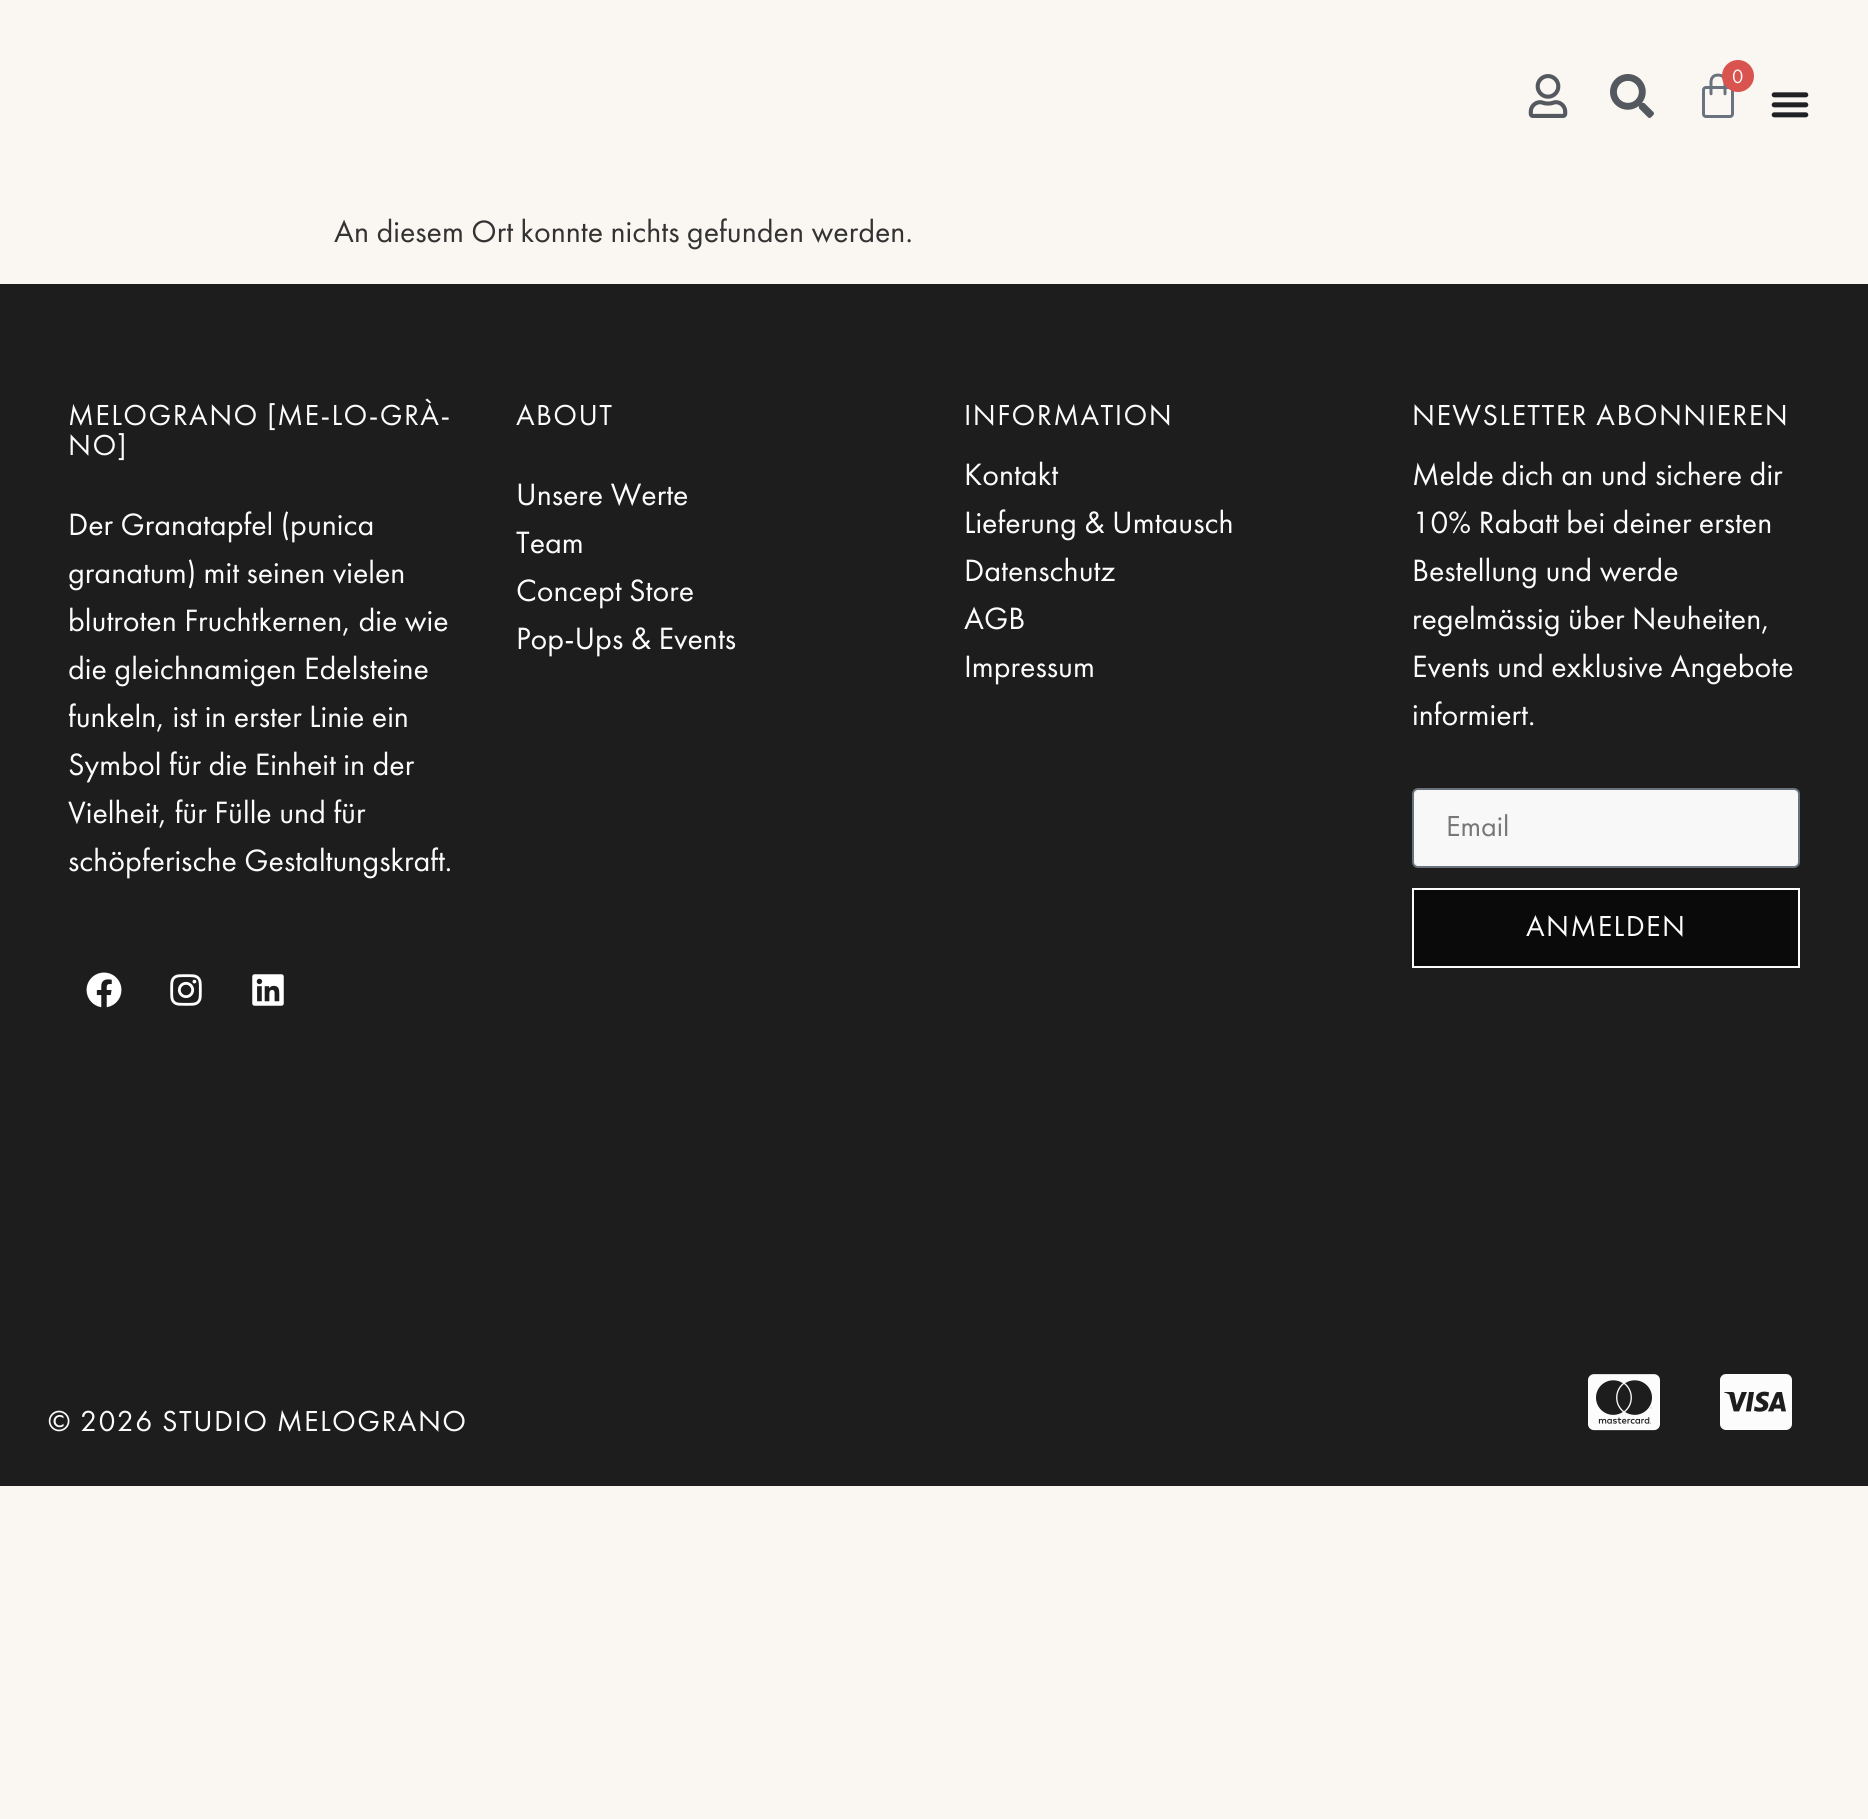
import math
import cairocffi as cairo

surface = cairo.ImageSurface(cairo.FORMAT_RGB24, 1868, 1819)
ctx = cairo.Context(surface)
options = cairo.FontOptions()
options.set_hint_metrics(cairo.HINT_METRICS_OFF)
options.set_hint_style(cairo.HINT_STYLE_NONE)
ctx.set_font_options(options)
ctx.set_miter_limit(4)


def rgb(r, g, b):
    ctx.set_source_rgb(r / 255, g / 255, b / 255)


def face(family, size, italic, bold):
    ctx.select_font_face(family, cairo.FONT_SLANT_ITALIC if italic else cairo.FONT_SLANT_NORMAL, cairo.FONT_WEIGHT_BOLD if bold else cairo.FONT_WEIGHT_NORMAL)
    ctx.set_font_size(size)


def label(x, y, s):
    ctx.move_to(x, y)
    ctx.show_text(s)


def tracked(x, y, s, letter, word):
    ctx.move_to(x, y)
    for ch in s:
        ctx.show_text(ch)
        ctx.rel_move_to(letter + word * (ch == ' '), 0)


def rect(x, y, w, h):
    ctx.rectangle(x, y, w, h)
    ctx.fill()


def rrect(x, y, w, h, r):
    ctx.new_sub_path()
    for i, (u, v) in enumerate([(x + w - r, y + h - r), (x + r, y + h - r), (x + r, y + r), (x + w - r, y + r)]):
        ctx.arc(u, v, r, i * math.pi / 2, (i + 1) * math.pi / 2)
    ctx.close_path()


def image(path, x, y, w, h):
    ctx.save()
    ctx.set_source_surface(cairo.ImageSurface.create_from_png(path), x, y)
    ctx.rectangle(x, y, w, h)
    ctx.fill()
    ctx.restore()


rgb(250, 246, 241)
ctx.paint()
image('image0.png', 1528, 74, 40, 44)
image('image1.png', 1610, 74, 44, 44)
image('image2.png', 1702, 73, 32, 45)
rgb(217, 83, 79)
ctx.arc(1738, 76, 16, 0, 2 * math.pi)
ctx.fill()
face('Futura PT', 20, 0, 0)
rgb(252, 252, 252)
label(1732, 83, '0')
image('image3.png', 1771, 92, 38, 26)
face('Futura PT', 32, 0, 0)
rgb(51, 51, 51)
label(334, 242, 'An diesem Ort konnte nichts gefunden werden.')
rgb(29, 29, 29)
rect(0, 284, 1868, 1202)
face('Futura PT', 30, 0, 0)
rgb(252, 252, 252)
tracked(68, 425, 'MELOGRANO [ME-LO-GRÀ-', 1.4, 0)
tracked(68, 455, 'NO]', 1.4, 0)
face('Futura PT', 32, 0, 0)
label(68, 535, 'Der Granatapfel (punica')
label(68, 583, 'granatum) mit seinen vielen')
label(68, 631, 'blutroten Fruchtkernen, die wie')
label(68, 679, 'die gleichnamigen Edelsteine')
label(68, 727, 'funkeln, ist in erster Linie ein')
label(68, 775, 'Symbol für die Einheit in der')
label(68, 823, 'Vielheit, für Fülle und für')
label(68, 871, 'schöpferische Gestaltungskraft.')
image('image4.png', 86, 972, 36, 36)
image('image5.png', 170, 974, 32, 32)
image('image6.png', 252, 974, 32, 32)
face('Futura PT', 30, 0, 0)
tracked(516, 425, 'ABOUT', 1.4, 0)
face('Futura PT', 32, 0, 0)
label(516, 505, 'Unsere Werte')
label(516, 553, 'Team')
label(516, 601, 'Concept Store')
label(516, 649, 'Pop-Ups & Events')
face('Futura PT', 30, 0, 0)
tracked(964, 425, 'INFORMATION', 1.4, 0)
face('Futura PT', 32, 0, 0)
label(964, 485, 'Kontakt')
label(964, 533, 'Lieferung & Umtausch')
label(964, 581, 'Datenschutz')
label(964, 629, 'AGB')
label(964, 677, 'Impressum')
face('Futura PT', 30, 0, 0)
tracked(1412, 425, 'NEWSLETTER ABONNIEREN', 1.4, 0)
face('Futura PT', 32, 0, 0)
label(1412, 485, 'Melde dich an und sichere dir')
label(1412, 533, '10% Rabatt bei deiner ersten')
label(1412, 581, 'Bestellung und werde')
label(1412, 629, 'regelmässig über Neuheiten,')
label(1412, 677, 'Events und exklusive Angebote')
label(1412, 725, 'informiert.')
rgb(248, 248, 248)
rrect(1413, 789, 386, 78, 5)
ctx.fill_preserve()
rgb(105, 114, 125)
ctx.stroke()
face('Futura PT', 30, 0, 0)
rgb(118, 119, 121)
label(1446, 836, 'Email')
rgb(10, 10, 10)
ctx.rectangle(1413, 889, 386, 78)
ctx.fill_preserve()
rgb(252, 252, 252)
ctx.stroke()
tracked(1526, 936, 'ANMELDEN', 1.4, 0)
tracked(48, 1431, '© 2026 STUDIO MELOGRANO', 1.4, 0)
image('image7.png', 1588, 1374, 72, 57)
image('image8.png', 1720, 1374, 72, 56)
surface.write_to_png('render.png')
